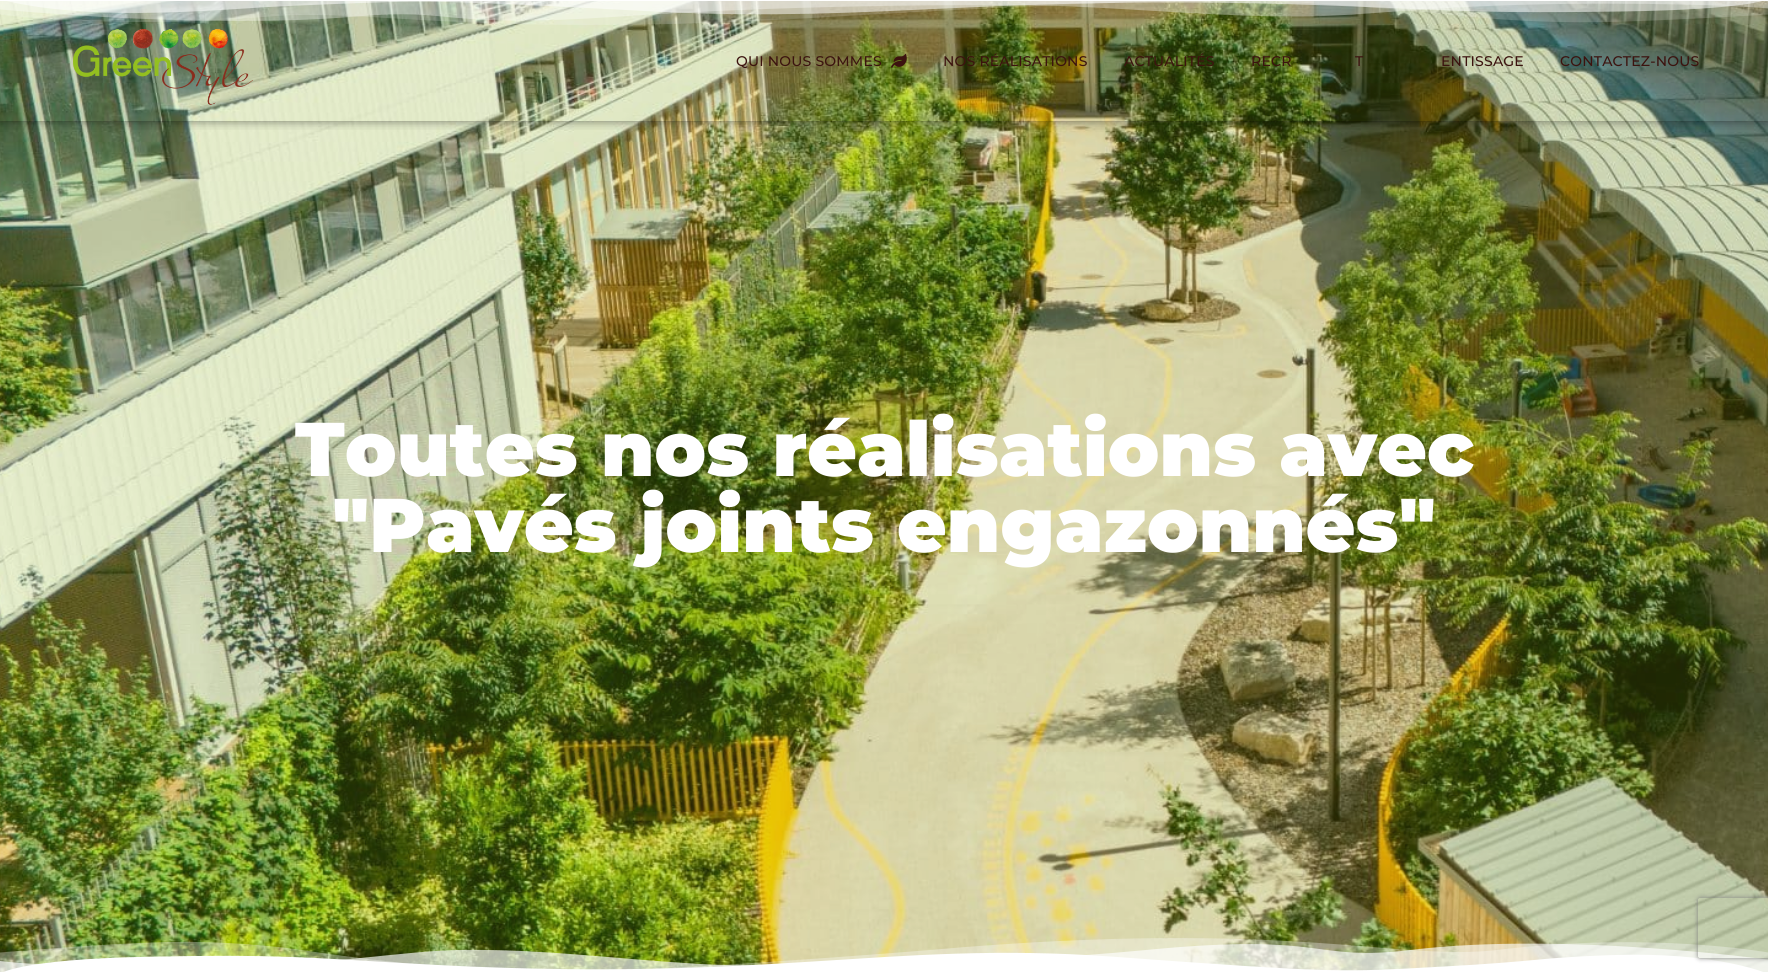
import math
import cairocffi as cairo

surface = cairo.ImageSurface(cairo.FORMAT_RGB24, 1768, 972)
ctx = cairo.Context(surface)
options = cairo.FontOptions()
options.set_hint_metrics(cairo.HINT_METRICS_OFF)
options.set_hint_style(cairo.HINT_STYLE_NONE)
ctx.set_font_options(options)
ctx.set_miter_limit(4)


def rgb(r, g, b):
    ctx.set_source_rgb(r / 255, g / 255, b / 255)


def face(family, size, italic, bold):
    ctx.select_font_face(family, cairo.FONT_SLANT_ITALIC if italic else cairo.FONT_SLANT_NORMAL, cairo.FONT_WEIGHT_BOLD if bold else cairo.FONT_WEIGHT_NORMAL)
    ctx.set_font_size(size)


def tracked(x, y, s, letter, word):
    ctx.move_to(x, y)
    for ch in s:
        ctx.show_text(ch)
        ctx.rel_move_to(letter + word * (ch == ' '), 0)


def rrect(x, y, w, h, r):
    ctx.new_sub_path()
    for i, (u, v) in enumerate([(x + w - r, y + h - r), (x + r, y + h - r), (x + r, y + r), (x + w - r, y + r)]):
        ctx.arc(u, v, r, i * math.pi / 2, (i + 1) * math.pi / 2)
    ctx.close_path()


def soft_shadow(x, y, w, h, r, blur, alpha):
    ctx.push_group_with_content(cairo.CONTENT_ALPHA)
    ctx.set_operator(cairo.OPERATOR_SOURCE)
    for i in range(15, -16, -2):
        e = blur * i / 6
        if min(w, h) + 2 * e > 0:
            ctx.set_source_rgba(0, 0, 0, alpha * math.erfc((i - 1) / 8.5) / 2)
            rrect(x - e, y - e, w + 2 * e, h + 2 * e, max(0, min(r + e + blur * .6, min(w, h) / 2 + e)))
            ctx.fill()
    ctx.mask(ctx.pop_group())


def image(path, x, y, w, h):
    ctx.save()
    ctx.set_source_surface(cairo.ImageSurface.create_from_png(path), x, y)
    ctx.rectangle(x, y, w, h)
    ctx.fill()
    ctx.restore()


rgb(255, 255, 255)
ctx.paint()
image('image3.png', 0, 1, 1768, 971)
ctx.save()
ctx.rectangle(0, 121, 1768, 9)
ctx.clip()
rgb(0, 0, 0)
soft_shadow(0, 0, 1768, 121, 0, 5, 0.5)
ctx.restore()
image('image0.png', 0, 1, 1768, 24)
image('image1.png', 73, 29, 180, 76)
face('Montserrat Medium', 14, 0, 0)
rgb(60, 19, 15)
tracked(736, 66, 'QUI NOUS SOMMES', 0.2, 0)
image('image2.png', 891, 53, 16, 15)
tracked(943, 66, 'NOS RÉALISATIONS', 0.2, 0)
tracked(1124, 66, 'ACTUALITÉS', 0.2, 0)
tracked(1251, 66, 'RECR', 0.2, 0)
tracked(1355, 66, 'T', 0.2, 0)
tracked(1441, 66, 'ENTISSAGE', 0.2, 0)
tracked(1560, 66, 'CONTACTEZ-NOUS', 0.2, 0)
face('Montserrat Black', 76, 0, 0)
rgb(255, 255, 255)
tracked(295, 476, 'Toutes nos réalisations avec', 0.2, 0)
tracked(332, 552, '"Pavés joints engazonnés"', 0.2, 0)
image('image4.png', 0, 938, 1768, 34)
ctx.save()
ctx.set_fill_rule(cairo.FILL_RULE_EVEN_ODD)
ctx.new_path()
ctx.move_to(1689, 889)
ctx.line_to(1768, 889)
ctx.line_to(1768, 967)
ctx.line_to(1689, 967)
ctx.close_path()
ctx.move_to(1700, 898)
ctx.line_to(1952, 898)
ctx.curve_to(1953, 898, 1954, 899, 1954, 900)
ctx.line_to(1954, 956)
ctx.curve_to(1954, 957, 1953, 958, 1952, 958)
ctx.line_to(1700, 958)
ctx.curve_to(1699, 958, 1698, 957, 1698, 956)
ctx.line_to(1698, 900)
ctx.curve_to(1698, 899, 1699, 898, 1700, 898)
ctx.close_path()
ctx.clip()
rgb(128, 128, 128)
soft_shadow(1698, 898, 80, 60, 2, 2.5, 1)
ctx.restore()
surface.write_to_png('render.png')
